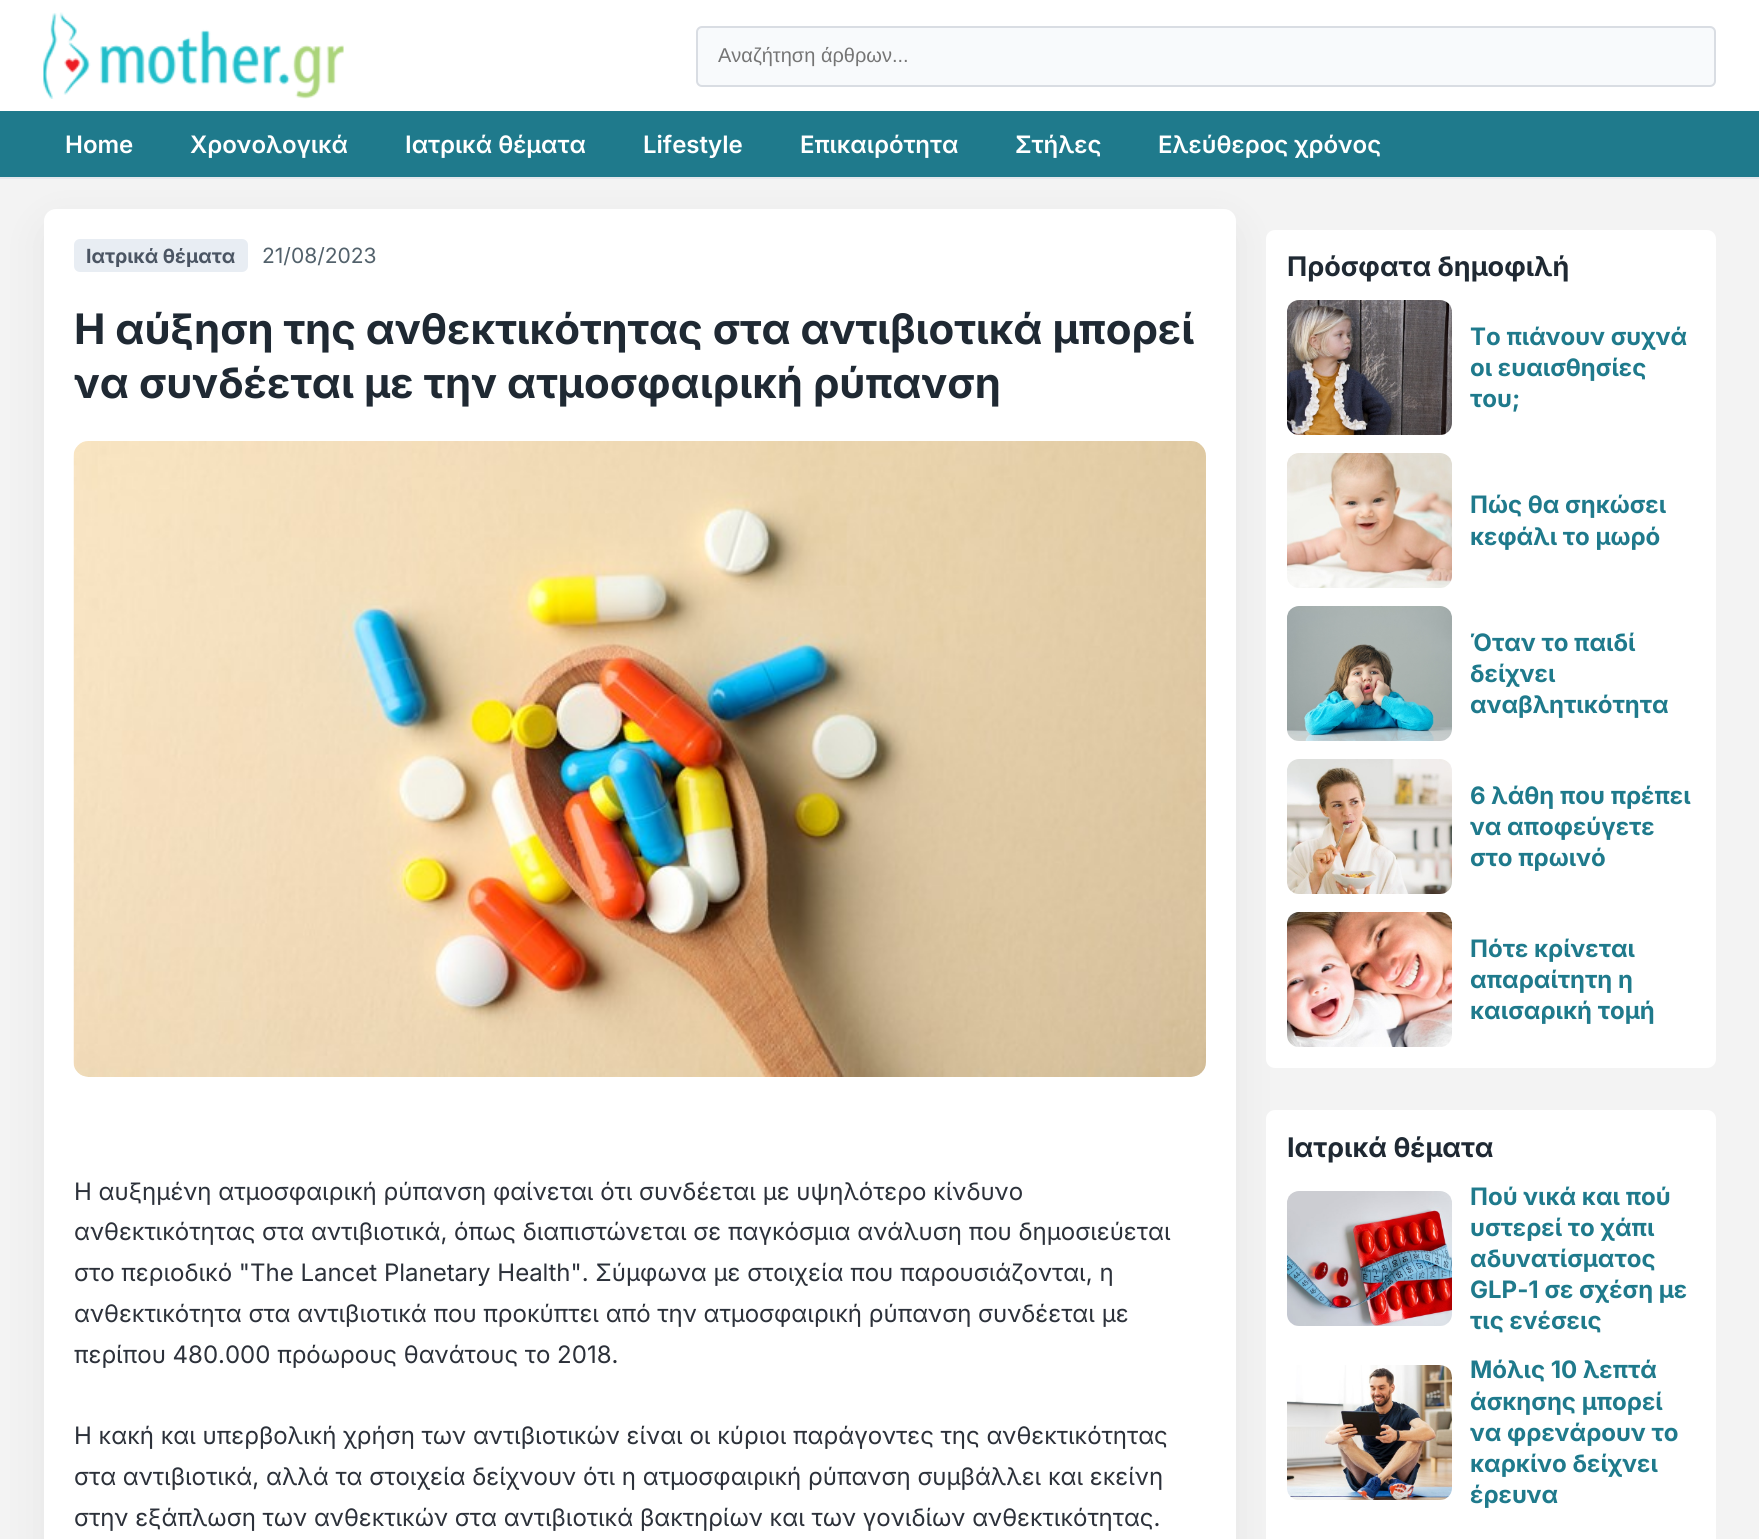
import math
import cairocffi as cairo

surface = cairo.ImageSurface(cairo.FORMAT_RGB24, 1759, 1539)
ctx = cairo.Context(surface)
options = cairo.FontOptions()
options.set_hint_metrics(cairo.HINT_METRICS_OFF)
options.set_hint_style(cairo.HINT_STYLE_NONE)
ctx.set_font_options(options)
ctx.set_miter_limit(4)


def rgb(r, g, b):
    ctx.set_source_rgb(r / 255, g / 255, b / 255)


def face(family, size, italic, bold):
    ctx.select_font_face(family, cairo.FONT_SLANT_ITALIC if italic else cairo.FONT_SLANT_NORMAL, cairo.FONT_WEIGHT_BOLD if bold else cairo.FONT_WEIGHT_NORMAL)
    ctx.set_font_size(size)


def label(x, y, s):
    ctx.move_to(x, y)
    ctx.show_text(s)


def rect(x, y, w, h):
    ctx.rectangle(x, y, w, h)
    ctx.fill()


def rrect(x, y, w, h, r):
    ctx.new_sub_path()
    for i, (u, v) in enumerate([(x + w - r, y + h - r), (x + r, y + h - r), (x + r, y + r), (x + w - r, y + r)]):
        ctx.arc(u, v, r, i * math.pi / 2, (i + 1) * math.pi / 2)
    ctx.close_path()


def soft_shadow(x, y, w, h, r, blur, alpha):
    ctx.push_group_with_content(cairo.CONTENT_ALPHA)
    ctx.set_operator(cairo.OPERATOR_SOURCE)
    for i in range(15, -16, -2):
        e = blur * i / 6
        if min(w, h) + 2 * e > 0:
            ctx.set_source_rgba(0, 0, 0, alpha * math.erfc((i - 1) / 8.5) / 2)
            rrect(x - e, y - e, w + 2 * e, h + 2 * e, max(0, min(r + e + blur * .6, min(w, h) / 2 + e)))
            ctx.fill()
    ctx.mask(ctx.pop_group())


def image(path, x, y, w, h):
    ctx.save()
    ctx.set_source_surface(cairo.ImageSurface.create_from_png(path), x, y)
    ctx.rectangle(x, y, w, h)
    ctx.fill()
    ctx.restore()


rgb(243, 243, 243)
ctx.paint()
rgb(255, 255, 255)
rect(0, 0, 1759, 111)
rgb(0, 0, 0)
soft_shadow(44, 224, 1192, 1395, 12, 22.5, 0.06)
rgb(229, 232, 236)
rect(0, 177, 1759, 2)
image('image0.png', 43, 12, 301, 87)
rgb(248, 250, 252)
rrect(697, 27, 1018, 59, 5)
ctx.fill_preserve()
rgb(217, 221, 227)
ctx.stroke()
face('Liberation Sans', 20, 0, 0)
rgb(117, 117, 117)
label(718, 62, 'Αναζήτηση άρθρων...')
rgb(31, 122, 140)
rect(0, 111, 1759, 66)
face('Inter SemiBold', 24, 0, 0)
rgb(255, 255, 255)
label(65, 153, 'Home')
label(190, 153, 'Χρονολογικά')
label(405, 153, 'Ιατρικά θέματα')
label(643, 153, 'Lifestyle')
label(800, 153, 'Επικαιρότητα')
label(1015, 153, 'Στήλες')
label(1158, 153, 'Ελεύθερος χρόνος')
rrect(44, 209, 1192, 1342, 12)
ctx.fill()
rgb(232, 237, 243)
rrect(74, 239, 174, 33, 6)
ctx.fill()
face('Inter', 19.5, 0, 1)
rgb(75, 85, 99)
label(86, 263, 'Ιατρικά θέματα')
face('Inter', 21, 0, 0)
rgb(82, 97, 107)
label(262, 263, '21/08/2023')
face('Inter', 42, 0, 1)
rgb(31, 41, 51)
label(74, 344, 'Η αύξηση της ανθεκτικότητας στα αντιβιοτικά μπορεί')
label(74, 398, 'να συνδέεται με την ατμοσφαιρική ρύπανση')
image('image1.png', 73, 441, 1133, 636)
face('Inter', 24, 0, 0)
rgb(44, 49, 58)
label(74, 1200, 'Η αυξημένη ατμοσφαιρική ρύπανση φαίνεται ότι συνδέεται με υψηλότερο κίνδυνο')
label(74, 1240, 'ανθεκτικότητας στα αντιβιοτικά, όπως διαπιστώνεται σε παγκόσμια ανάλυση που δημοσιεύεται')
label(74, 1281, 'στο περιοδικό "The Lancet Planetary Health". Σύμφωνα με στοιχεία που παρουσιάζονται, η')
label(74, 1322, 'ανθεκτικότητα στα αντιβιοτικά που προκύπτει από την ατμοσφαιρική ρύπανση συνδέεται με')
label(74, 1363, 'περίπου 480.000 πρόωρους θανάτους το 2018.')
label(74, 1444, 'Η κακή και υπερβολική χρήση των αντιβιοτικών είναι οι κύριοι παράγοντες της ανθεκτικότητας')
label(74, 1485, 'στα αντιβιοτικά, αλλά τα στοιχεία δείχνουν ότι η ατμοσφαιρική ρύπανση συμβάλλει και εκείνη')
label(74, 1526, 'στην εξάπλωση των ανθεκτικών στα αντιβιοτικά βακτηρίων και των γονιδίων ανθεκτικότητας.')
rgb(255, 255, 255)
rrect(1266, 230, 450, 838, 9)
ctx.fill()
face('Inter', 27, 0, 1)
rgb(31, 41, 51)
label(1287, 276, 'Πρόσφατα δημοφιλή')
image('image2.png', 1287, 300, 165, 135)
face('Inter', 24, 0, 1)
rgb(31, 122, 140)
label(1470, 345, 'Το πιάνουν συχνά')
label(1470, 376, 'οι ευαισθησίες')
label(1470, 407, 'του;')
image('image3.png', 1287, 453, 165, 135)
label(1470, 513, 'Πώς θα σηκώσει')
label(1470, 545, 'κεφάλι το μωρό')
image('image4.png', 1287, 606, 165, 135)
label(1470, 651, 'Όταν το παιδί')
label(1470, 682, 'δείχνει')
label(1470, 713, 'αναβλητικότητα')
image('image5.png', 1287, 759, 165, 135)
label(1470, 804, '6 λάθη που πρέπει')
label(1470, 835, 'να αποφεύγετε')
label(1470, 866, 'στο πρωινό')
image('image6.png', 1287, 912, 165, 135)
label(1470, 957, 'Πότε κρίνεται')
label(1470, 988, 'απαραίτητη η')
label(1470, 1019, 'καισαρική τομή')
rgb(255, 255, 255)
rrect(1266, 1110, 450, 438, 9)
ctx.fill()
face('Inter', 27, 0, 1)
rgb(31, 41, 51)
label(1287, 1157, 'Ιατρικά θέματα')
image('image7.png', 1287, 1191, 165, 135)
face('Inter', 24, 0, 1)
rgb(31, 122, 140)
label(1470, 1205, 'Πού νικά και πού')
label(1470, 1236, 'υστερεί το χάπι')
label(1470, 1267, 'αδυνατίσματος')
label(1470, 1298, 'GLP-1 σε σχέση με')
label(1470, 1329, 'τις ενέσεις')
image('image8.png', 1287, 1365, 165, 135)
label(1470, 1378, 'Μόλις 10 λεπτά')
label(1470, 1410, 'άσκησης μπορεί')
label(1470, 1441, 'να φρενάρουν το')
label(1470, 1472, 'καρκίνο δείχνει')
label(1470, 1503, 'έρευνα')
surface.write_to_png('render.png')
